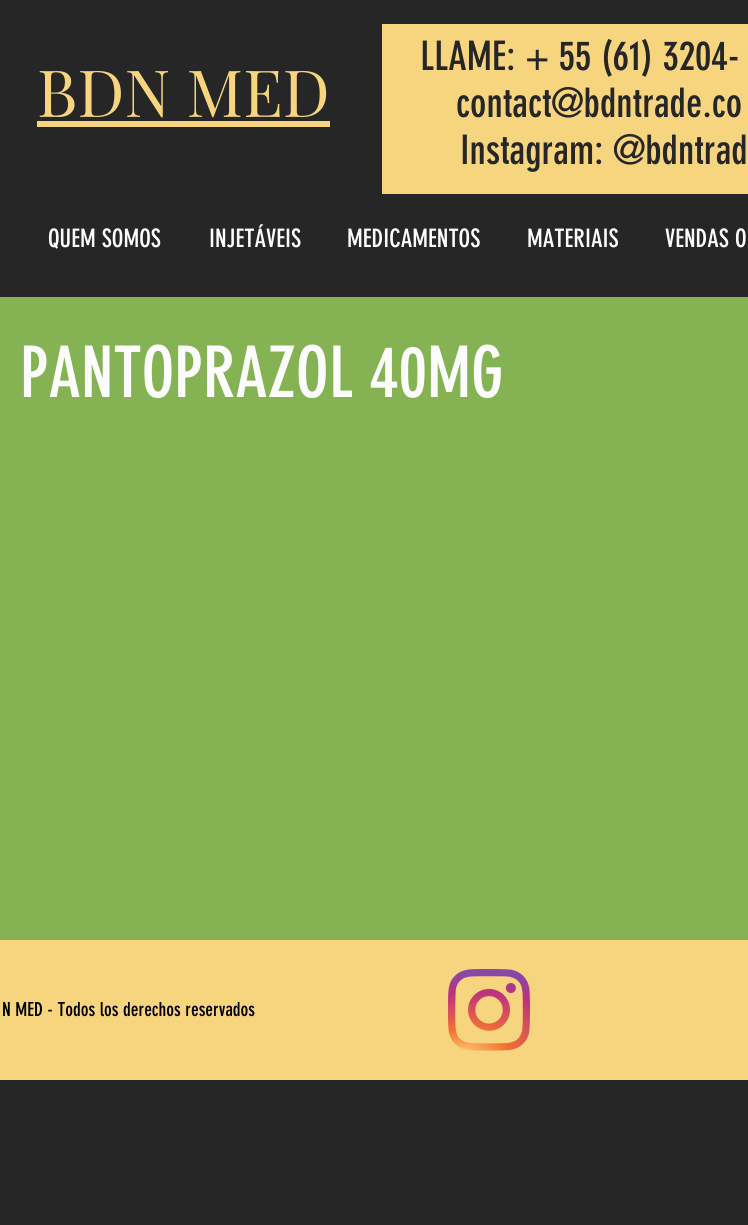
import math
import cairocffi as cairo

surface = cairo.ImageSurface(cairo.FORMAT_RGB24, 748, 1225)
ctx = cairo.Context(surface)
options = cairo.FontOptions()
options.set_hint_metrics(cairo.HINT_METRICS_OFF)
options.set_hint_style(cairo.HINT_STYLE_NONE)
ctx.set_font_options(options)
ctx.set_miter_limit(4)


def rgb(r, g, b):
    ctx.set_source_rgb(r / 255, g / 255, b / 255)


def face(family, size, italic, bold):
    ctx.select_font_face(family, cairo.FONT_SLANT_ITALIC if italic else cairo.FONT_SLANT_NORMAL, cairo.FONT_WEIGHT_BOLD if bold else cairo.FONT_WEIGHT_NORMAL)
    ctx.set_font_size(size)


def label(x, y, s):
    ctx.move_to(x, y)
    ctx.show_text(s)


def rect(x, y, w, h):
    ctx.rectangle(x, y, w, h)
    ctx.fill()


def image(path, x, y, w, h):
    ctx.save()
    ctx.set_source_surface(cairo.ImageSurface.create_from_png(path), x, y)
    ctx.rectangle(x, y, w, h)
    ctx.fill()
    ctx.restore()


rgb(38, 38, 38)
ctx.paint()
face('Playfair Display', 65, 0, 0)
rgb(247, 213, 127)
label(37, 117, 'BDN MED')
rect(37, 121, 293, 6)
rect(382, 24, 366, 170)
face('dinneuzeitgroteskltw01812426', 40, 0, 0)
rgb(38, 38, 38)
label(420, 70, 'LLAME: + 55 (61) 3204-')
label(456, 117, 'contact@bdntrade.co')
label(460, 164, 'Instagram: @bdntrad')
face('dinneuzeitgroteskltw01812426', 25, 0, 0)
rgb(252, 252, 252)
label(48, 247, 'QUEM SOMOS')
label(209, 247, 'INJETÁVEIS')
label(347, 247, 'MEDICAMENTOS')
label(527, 247, 'MATERIAIS')
label(665, 247, 'VENDAS O')
rgb(133, 179, 84)
rect(0, 297, 748, 643)
face('dinneuzeitgroteskltw01812426', 70, 0, 0)
rgb(252, 252, 252)
label(20, 397, 'PANTOPRAZOL 40MG')
rgb(247, 213, 127)
rect(0, 940, 748, 140)
face('dinneuzeitgroteskltw01812426', 19, 0, 0)
rgb(0, 0, 0)
label(2, 1016, 'N MED - Todos los derechos reservados')
image('image0.png', 448, 969, 82, 82)
surface.write_to_png('render.png')
